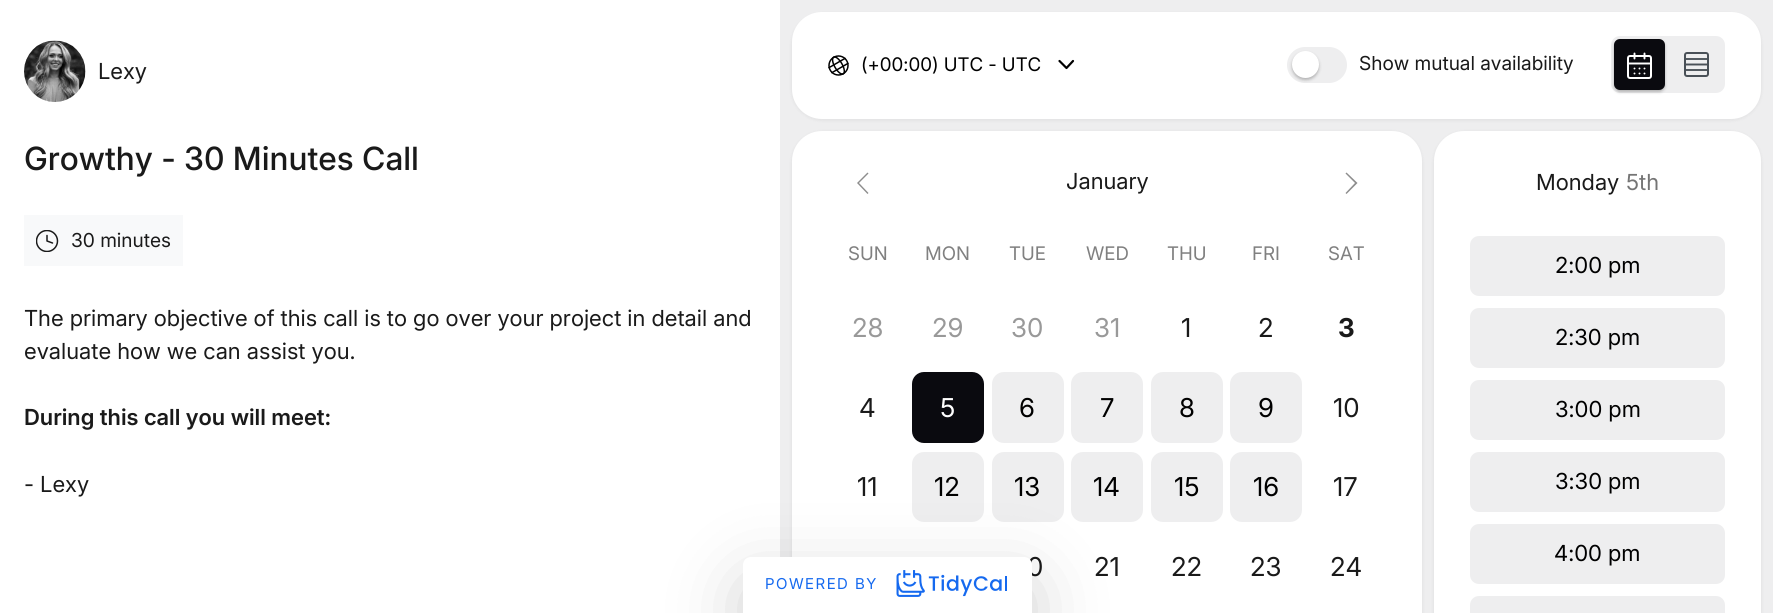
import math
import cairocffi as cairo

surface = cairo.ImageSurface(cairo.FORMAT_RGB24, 1773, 613)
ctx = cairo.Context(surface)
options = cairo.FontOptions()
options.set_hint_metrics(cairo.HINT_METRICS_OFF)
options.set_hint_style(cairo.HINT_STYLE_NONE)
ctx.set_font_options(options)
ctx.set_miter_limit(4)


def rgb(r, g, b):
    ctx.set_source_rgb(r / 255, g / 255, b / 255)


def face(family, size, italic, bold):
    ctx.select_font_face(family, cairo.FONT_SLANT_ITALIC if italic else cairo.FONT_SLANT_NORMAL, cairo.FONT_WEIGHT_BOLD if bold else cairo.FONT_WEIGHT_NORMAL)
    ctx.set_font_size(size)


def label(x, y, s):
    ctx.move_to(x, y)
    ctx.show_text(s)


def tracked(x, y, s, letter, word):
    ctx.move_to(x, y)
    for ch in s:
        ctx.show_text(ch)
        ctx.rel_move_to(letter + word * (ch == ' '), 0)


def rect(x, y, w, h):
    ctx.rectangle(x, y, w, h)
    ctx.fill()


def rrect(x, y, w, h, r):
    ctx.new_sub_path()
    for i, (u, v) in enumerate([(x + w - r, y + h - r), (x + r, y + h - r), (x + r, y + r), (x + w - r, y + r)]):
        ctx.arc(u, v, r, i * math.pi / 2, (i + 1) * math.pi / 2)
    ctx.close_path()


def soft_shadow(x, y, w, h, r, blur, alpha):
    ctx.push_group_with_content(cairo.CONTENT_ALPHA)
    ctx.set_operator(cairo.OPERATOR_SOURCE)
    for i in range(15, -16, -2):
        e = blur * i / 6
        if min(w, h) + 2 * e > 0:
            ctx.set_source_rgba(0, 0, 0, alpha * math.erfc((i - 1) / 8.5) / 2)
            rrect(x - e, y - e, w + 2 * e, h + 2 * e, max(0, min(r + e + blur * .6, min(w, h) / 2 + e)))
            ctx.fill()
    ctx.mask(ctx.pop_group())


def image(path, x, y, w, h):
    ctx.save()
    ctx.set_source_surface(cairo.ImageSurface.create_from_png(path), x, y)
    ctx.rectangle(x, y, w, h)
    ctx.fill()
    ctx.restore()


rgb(238, 238, 239)
ctx.paint()
rgb(255, 255, 255)
rect(0, 0, 780, 613)
image('image0.png', 24, 40, 62, 62)
face('Inter', 22.1, 0, 0)
rgb(26, 26, 26)
label(98, 79, 'Lexy')
face('Inter Medium', 32, 0, 0)
label(24, 170, 'Growthy - 30 Minutes Call')
rgb(248, 249, 250)
rect(24, 215, 159, 51)
ctx.save()
ctx.rectangle(36, 230, 23, 22)
ctx.clip()
ctx.arc(47, 241, 10.5, 0, 2 * math.pi)
rgb(25, 25, 25)
ctx.set_line_width(1.5)
ctx.stroke()
ctx.restore()
ctx.new_path()
ctx.move_to(47, 235.5)
ctx.line_to(47, 241)
ctx.line_to(52.5, 243)
rgb(25, 25, 25)
ctx.set_line_width(1.5)
ctx.set_line_cap(cairo.LINE_CAP_ROUND)
ctx.set_line_join(cairo.LINE_JOIN_ROUND)
ctx.stroke()
face('Inter', 19.25, 0, 0)
rgb(26, 26, 26)
label(71, 247, '30 minutes')
face('Inter', 22.1, 0, 0)
label(24, 326, 'The primary objective of this call is to go over your project in detail and')
label(24, 359, 'evaluate how we can assist you.')
face('Inter SemiBold', 22.1, 0, 0)
label(24, 425, 'During this call you will meet:')
face('Inter', 22.1, 0, 0)
label(24, 492, '- Lexy')
rgb(0, 0, 0)
soft_shadow(792, 14, 969, 106, 30, 2, 0.07)
rgb(255, 255, 255)
rrect(792, 12, 969, 107, 30)
ctx.fill()
image('image1.png', 828, 55, 21, 21)
face('Inter', 18.75, 0, 0)
rgb(0, 0, 0)
label(861, 71, '(+00:00) UTC - UTC')
ctx.new_path()
ctx.move_to(1059.5, 61)
ctx.line_to(1066.5, 68)
ctx.line_to(1073, 61)
ctx.set_line_width(2.2)
ctx.stroke()
rgb(238, 238, 239)
rrect(1287, 47, 60, 36, 18)
ctx.fill()
rgb(0, 0, 0)
soft_shadow(1292, 53, 27, 27, 13.5, 1.5, 0.25)
rgb(255, 255, 255)
ctx.arc(1305.5, 64.5, 13.5, 0, 2 * math.pi)
ctx.fill()
face('Inter', 19.25, 0, 0)
rgb(26, 26, 26)
label(1359, 70, 'Show mutual availability')
rgb(238, 238, 239)
rrect(1611, 36, 114, 57, 9)
ctx.fill()
rgb(0, 0, 0)
soft_shadow(1614, 41, 51, 51, 6, 1.5, 0.25)
rgb(10, 10, 15)
rrect(1614, 39, 51, 51, 6)
ctx.fill()
image('image2.png', 1627, 52, 25, 27)
rrect(1685, 53, 23, 23, 2)
rgb(73, 80, 87)
ctx.set_line_width(2)
ctx.set_line_cap(cairo.LINE_CAP_BUTT)
ctx.set_line_join(cairo.LINE_JOIN_MITER)
ctx.stroke()
ctx.new_path()
ctx.move_to(1708, 59)
ctx.line_to(1685, 59)
ctx.move_to(1708, 64.5)
ctx.line_to(1685, 64.5)
ctx.move_to(1708, 70)
ctx.line_to(1685, 70)
ctx.set_line_width(1.9)
ctx.set_line_cap(cairo.LINE_CAP_ROUND)
ctx.set_line_join(cairo.LINE_JOIN_ROUND)
ctx.stroke()
rgb(0, 0, 0)
soft_shadow(792, 132, 630, 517, 30, 2, 0.07)
rgb(255, 255, 255)
rrect(792, 131, 630, 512, 30)
ctx.fill()
rgb(141, 141, 141)
ctx.new_path()
ctx.move_to(867.5, 194)
ctx.line_to(857, 183)
ctx.line_to(859, 183)
ctx.line_to(868.5, 193)
ctx.close_path()
ctx.move_to(857, 183)
ctx.line_to(867.5, 172.5)
ctx.line_to(868.5, 173.5)
ctx.line_to(859, 183)
ctx.close_path()
ctx.fill()
face('Inter', 22.1, 0, 0)
rgb(26, 26, 26)
label(1066, 189, 'January')
rgb(141, 141, 141)
ctx.new_path()
ctx.move_to(1346.5, 172.5)
ctx.line_to(1357.5, 183)
ctx.line_to(1355, 183)
ctx.line_to(1345.5, 173.5)
ctx.close_path()
ctx.move_to(1357.5, 183)
ctx.line_to(1346.5, 194)
ctx.line_to(1345.5, 193)
ctx.line_to(1355, 183)
ctx.close_path()
ctx.fill()
face('Inter', 18.75, 0, 0)
rgb(128, 128, 128)
label(848, 260, 'SUN')
label(925, 260, 'MON')
label(1009, 260, 'TUE')
label(1086, 260, 'WED')
label(1167, 260, 'THU')
label(1252, 260, 'FRI')
label(1328, 260, 'SAT')
face('Inter', 26, 0, 0)
rgb(153, 153, 153)
label(852, 337, '28')
label(932, 337, '29')
label(1011, 337, '30')
label(1094, 337, '31')
rgb(26, 26, 26)
label(1181, 337, '1')
label(1258, 337, '2')
face('Inter', 26, 0, 1)
label(1338, 337, '3')
face('Inter', 26, 0, 0)
label(859, 417, '4')
rgb(10, 10, 15)
rrect(912, 372, 72, 71, 12)
ctx.fill()
rgb(255, 255, 255)
label(940, 417, '5')
rgb(238, 238, 239)
rrect(992, 372, 72, 71, 12)
ctx.fill()
rgb(0, 0, 0)
label(1019, 417, '6')
rgb(238, 238, 239)
rrect(1071, 372, 72, 71, 12)
ctx.fill()
rgb(0, 0, 0)
label(1100, 417, '7')
rgb(238, 238, 239)
rrect(1151, 372, 72, 71, 12)
ctx.fill()
rgb(0, 0, 0)
label(1179, 417, '8')
rgb(238, 238, 239)
rrect(1230, 372, 72, 71, 12)
ctx.fill()
rgb(0, 0, 0)
label(1258, 417, '9')
rgb(26, 26, 26)
label(1333, 417, '10')
label(857, 496, '11')
rgb(238, 238, 239)
rrect(912, 452, 72, 70, 12)
ctx.fill()
rgb(0, 0, 0)
label(934, 496, '12')
rgb(238, 238, 239)
rrect(992, 452, 72, 70, 12)
ctx.fill()
rgb(0, 0, 0)
label(1014, 496, '13')
rgb(238, 238, 239)
rrect(1071, 452, 72, 70, 12)
ctx.fill()
rgb(0, 0, 0)
label(1093, 496, '14')
rgb(238, 238, 239)
rrect(1151, 452, 72, 70, 12)
ctx.fill()
rgb(0, 0, 0)
label(1174, 496, '15')
rgb(238, 238, 239)
rrect(1230, 452, 72, 70, 12)
ctx.fill()
rgb(0, 0, 0)
label(1253, 496, '16')
rgb(26, 26, 26)
label(1333, 496, '17')
label(1027, 576, '0')
label(1094, 576, '21')
label(1171, 576, '22')
label(1250, 576, '23')
label(1330, 576, '24')
rgb(0, 0, 0)
soft_shadow(1434, 132, 327, 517, 30, 2, 0.07)
rgb(255, 255, 255)
rrect(1434, 131, 327, 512, 30)
ctx.fill()
face('Inter', 22.1, 0, 0)
rgb(26, 26, 26)
label(1536, 190, 'Monday')
rgb(117, 117, 117)
label(1626, 190, '5th')
rgb(238, 238, 239)
rrect(1471, 237, 253, 58, 8)
ctx.fill_preserve()
ctx.set_line_width(2)
ctx.set_line_cap(cairo.LINE_CAP_BUTT)
ctx.set_line_join(cairo.LINE_JOIN_MITER)
ctx.stroke()
rgb(0, 0, 0)
label(1555, 273, '2:00 pm')
rgb(238, 238, 239)
rrect(1471, 309, 253, 58, 8)
ctx.fill_preserve()
ctx.stroke()
rgb(0, 0, 0)
label(1555, 345, '2:30 pm')
rgb(238, 238, 239)
rrect(1471, 381, 253, 58, 8)
ctx.fill_preserve()
ctx.stroke()
rgb(0, 0, 0)
label(1555, 417, '3:00 pm')
rgb(238, 238, 239)
rrect(1471, 453, 253, 58, 8)
ctx.fill_preserve()
ctx.stroke()
rgb(0, 0, 0)
label(1555, 489, '3:30 pm')
rgb(238, 238, 239)
rrect(1471, 525, 253, 58, 8)
ctx.fill_preserve()
ctx.stroke()
rgb(0, 0, 0)
label(1554, 561, '4:00 pm')
rgb(238, 238, 239)
rrect(1471, 597, 253, 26, 8)
ctx.fill_preserve()
ctx.stroke()
rgb(0, 0, 0)
soft_shadow(743, 581, 289, 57, 8, 36, 0.18)
rgb(255, 255, 255)
ctx.new_path()
ctx.move_to(751, 557)
ctx.line_to(1024, 557)
ctx.curve_to(1028.5, 557, 1032, 560.5, 1032, 565)
ctx.line_to(1032, 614)
ctx.line_to(743, 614)
ctx.line_to(743, 565)
ctx.curve_to(743, 560.5, 746.5, 557, 751, 557)
ctx.close_path()
ctx.fill()
face('Inter', 15, 0, 0)
rgb(21, 105, 239)
tracked(765, 589, 'POWERED BY', 1.5, 0)
image('image3.png', 896, 570, 111, 27)
surface.write_to_png('render.png')
